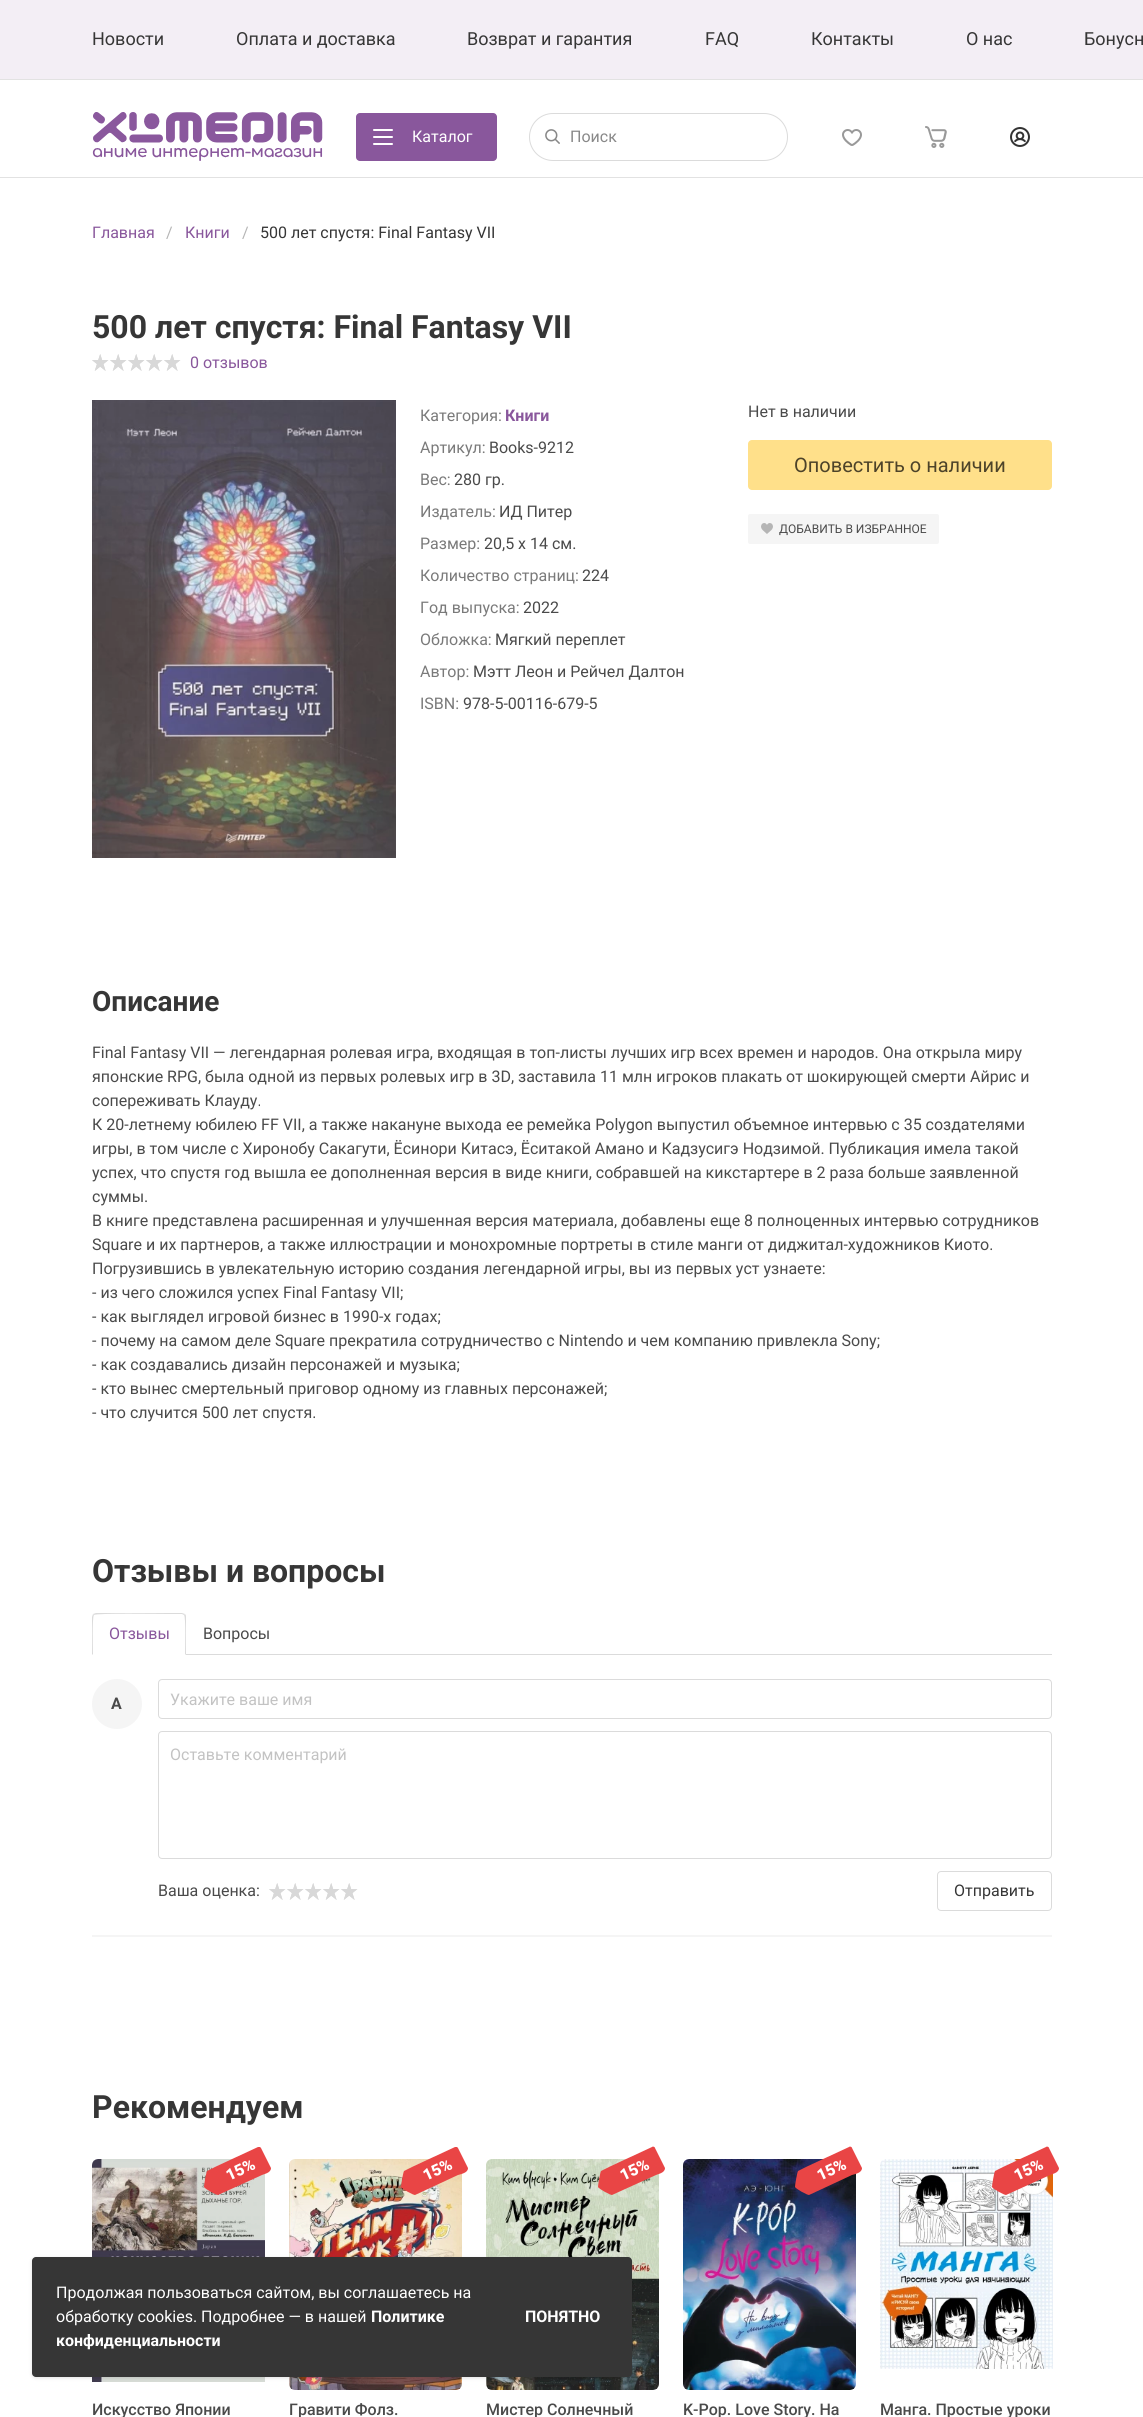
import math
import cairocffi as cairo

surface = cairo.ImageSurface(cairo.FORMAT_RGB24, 1143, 2417)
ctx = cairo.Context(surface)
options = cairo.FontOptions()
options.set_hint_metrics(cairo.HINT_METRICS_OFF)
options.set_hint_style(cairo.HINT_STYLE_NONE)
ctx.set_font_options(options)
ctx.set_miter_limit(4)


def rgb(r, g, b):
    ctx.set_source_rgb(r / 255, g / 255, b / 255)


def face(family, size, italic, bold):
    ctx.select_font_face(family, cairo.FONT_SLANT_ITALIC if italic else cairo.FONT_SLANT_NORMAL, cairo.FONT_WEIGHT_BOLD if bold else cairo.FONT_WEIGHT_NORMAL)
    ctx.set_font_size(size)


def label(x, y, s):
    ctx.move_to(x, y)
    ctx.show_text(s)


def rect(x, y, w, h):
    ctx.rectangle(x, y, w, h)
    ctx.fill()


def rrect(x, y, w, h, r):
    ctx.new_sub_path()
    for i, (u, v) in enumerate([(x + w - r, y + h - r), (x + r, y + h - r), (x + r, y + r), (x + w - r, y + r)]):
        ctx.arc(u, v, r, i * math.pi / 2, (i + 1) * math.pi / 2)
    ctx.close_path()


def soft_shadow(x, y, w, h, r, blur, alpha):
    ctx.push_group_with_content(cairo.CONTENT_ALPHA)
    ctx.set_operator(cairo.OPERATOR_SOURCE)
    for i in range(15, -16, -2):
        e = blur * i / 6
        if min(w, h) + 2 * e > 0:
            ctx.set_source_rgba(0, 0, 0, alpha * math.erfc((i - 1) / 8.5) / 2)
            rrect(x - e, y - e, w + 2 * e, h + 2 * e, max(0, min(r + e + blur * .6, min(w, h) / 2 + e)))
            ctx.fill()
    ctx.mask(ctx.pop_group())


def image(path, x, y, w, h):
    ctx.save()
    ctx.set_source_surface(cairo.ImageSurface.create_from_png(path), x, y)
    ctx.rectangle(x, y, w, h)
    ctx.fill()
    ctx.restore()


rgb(255, 255, 255)
ctx.paint()
rgb(243, 238, 245)
rect(0, 0, 1143, 79)
rgb(226, 226, 226)
rect(0, 79, 1143, 1)
face('Roboto', 18, 0, 0)
rgb(54, 54, 54)
label(92, 45, 'Новости')
label(236, 45, 'Оплата и доставка')
label(467, 45, 'Возврат и гарантия')
label(705, 45, 'FAQ')
label(811, 45, 'Контакты')
label(966, 45, 'О нас')
label(1084, 45, 'Бонусн')
rgb(226, 226, 226)
rect(0, 177, 1143, 1)
image('image0.png', 92, 112, 231, 49)
rgb(137, 87, 156)
rrect(356, 113, 141, 48, 4)
ctx.fill()
rgb(255, 255, 255)
rrect(373, 129, 20, 2, 1)
ctx.fill()
rrect(373, 136, 20, 2, 1)
ctx.fill()
rrect(373, 143, 20, 2, 1)
ctx.fill()
face('Roboto', 16, 0, 0)
label(412, 142, 'Каталог')
rrect(529.5, 113.5, 258, 47, 23.5)
rgb(219, 219, 219)
ctx.set_line_width(1)
ctx.stroke()
image('image1.png', 545, 129, 15, 15)
rgb(136, 136, 136)
label(570, 142, 'Поиск')
image('image2.png', 842, 129, 20, 17)
image('image3.png', 925, 126, 22, 22)
image('image4.png', 1010, 127, 20, 20)
rgb(137, 87, 156)
label(92, 238, 'Главная')
rgb(181, 181, 181)
label(166, 238, '/')
rgb(137, 87, 156)
label(185, 238, 'Книги')
rgb(181, 181, 181)
label(242, 238, '/')
rgb(54, 54, 54)
label(260, 238, '500 лет спустя: Final Fantasy VII')
face('Roboto', 32, 0, 1)
label(92, 338, '500 лет спустя: Final Fantasy VII')
image('image5.png', 92, 354, 17, 17)
image('image5.png', 110, 354, 17, 17)
image('image5.png', 128, 354, 17, 17)
image('image5.png', 146, 354, 17, 17)
image('image5.png', 164, 354, 17, 17)
face('Roboto', 16, 0, 0)
rgb(137, 87, 156)
label(190, 368, '0 отзывов')
image('image6.png', 92, 400, 304, 458)
rgb(122, 122, 122)
label(420, 421, 'Категория:')
face('Roboto', 16, 0, 1)
rgb(137, 87, 156)
label(505, 421, 'Книги')
face('Roboto', 16, 0, 0)
rgb(122, 122, 122)
label(420, 453, 'Артикул:')
rgb(74, 74, 74)
label(489, 453, 'Books-9212')
rgb(122, 122, 122)
label(420, 485, 'Вес:')
rgb(74, 74, 74)
label(454, 485, '280 гр.')
rgb(122, 122, 122)
label(420, 517, 'Издатель:')
rgb(74, 74, 74)
label(499, 517, 'ИД Питер')
rgb(122, 122, 122)
label(420, 549, 'Размер:')
rgb(74, 74, 74)
label(484, 549, '20,5 x 14 см.')
rgb(122, 122, 122)
label(420, 581, 'Количество страниц:')
rgb(74, 74, 74)
label(582, 581, '224')
rgb(122, 122, 122)
label(420, 613, 'Год выпуска:')
rgb(74, 74, 74)
label(523, 613, '2022')
rgb(122, 122, 122)
label(420, 645, 'Обложка:')
rgb(74, 74, 74)
label(495, 645, 'Мягкий переплет')
rgb(122, 122, 122)
label(420, 677, 'Автор:')
rgb(74, 74, 74)
label(473, 677, 'Мэтт Леон и Рейчел Далтон')
rgb(122, 122, 122)
label(420, 709, 'ISBN:')
rgb(74, 74, 74)
label(463, 709, '978-5-00116-679-5')
label(748, 417, 'Нет в наличии')
rgb(255, 224, 138)
rrect(748, 440, 304, 50, 4)
ctx.fill()
face('Roboto', 20, 0, 0)
rgb(77, 67, 41)
label(794, 472, 'Оповестить о наличии')
rgb(245, 245, 245)
rrect(748, 514, 191, 30, 2)
ctx.fill()
image('image7.png', 761, 523, 12, 11)
face('Roboto', 12, 0, 0)
rgb(74, 74, 74)
label(779, 533, 'ДОБАВИТЬ В ИЗБРАННОЕ')
face('Roboto', 28, 0, 1)
rgb(54, 54, 54)
label(92, 1011, 'Описание')
face('Roboto', 16, 0, 0)
rgb(74, 74, 74)
label(92, 1058, 'Final Fantasy VII — легендарная ролевая игра, входящая в топ-листы лучших игр всех времен и народов. Она открыла миру')
label(92, 1082, 'японские RPG, была одной из первых ролевых игр в 3D, заставила 11 млн игроков плакать от шокирующей смерти Айрис и')
label(92, 1106, 'сопереживать Клауду.')
label(92, 1130, 'К 20-летнему юбилею FF VII, а также накануне выхода ее ремейка Polygon выпустил объемное интервью с 35 создателями')
label(92, 1154, 'игры, в том числе с Хиронобу Сакагути, Ёсинори Китасэ, Ёситакой Амано и Кадзусигэ Нодзимой. Публикация имела такой')
label(92, 1178, 'успех, что спустя год вышла ее дополненная версия в виде книги, собравшей на кикстартере в 2 раза больше заявленной')
label(92, 1202, 'суммы.')
label(92, 1226, 'В книге представлена расширенная и улучшенная версия материала, добавлены еще 8 полноценных интервью сотрудников')
label(92, 1250, 'Square и их партнеров, а также иллюстрации и монохромные портреты в стиле манги от диджитал-художников Киото.')
label(92, 1274, 'Погрузившись в увлекательную историю создания легендарной игры, вы из первых уст узнаете:')
label(92, 1298, '- из чего сложился успех Final Fantasy VII;')
label(92, 1322, '- как выглядел игровой бизнес в 1990-х годах;')
label(92, 1346, '- почему на самом деле Square прекратила сотрудничество с Nintendo и чем компанию привлекла Sony;')
label(92, 1370, '- как создавались дизайн персонажей и музыка;')
label(92, 1394, '- кто вынес смертельный приговор одному из главных персонажей;')
label(92, 1418, '- что случится 500 лет спустя.')
face('Roboto', 32, 0, 1)
rgb(54, 54, 54)
label(92, 1582, 'Отзывы и вопросы')
rgb(219, 219, 219)
rect(186, 1654, 866, 1)
ctx.new_path()
ctx.move_to(96, 1613)
ctx.line_to(93, 1614)
ctx.line_to(94, 1615)
ctx.curve_to(96, 1613, 160, 1614, 168, 1614)
ctx.line_to(182, 1614)
ctx.line_to(184, 1615)
ctx.line_to(185, 1614)
ctx.line_to(182, 1613)
ctx.close_path()
ctx.fill()
ctx.new_path()
ctx.move_to(186, 1655)
ctx.line_to(186, 1617)
ctx.curve_to(186, 1616, 186, 1615, 185, 1614)
ctx.line_to(184, 1615)
ctx.curve_to(186, 1617, 185, 1649, 185, 1654)
ctx.close_path()
ctx.fill()
ctx.new_path()
ctx.move_to(92, 1655)
ctx.line_to(93, 1654)
ctx.curve_to(93, 1649, 92, 1617, 94, 1615)
ctx.line_to(93, 1614)
ctx.line_to(92, 1617)
ctx.close_path()
ctx.fill()
face('Roboto', 16, 0, 0)
rgb(137, 87, 156)
label(109, 1639, 'Отзывы')
rgb(74, 74, 74)
label(203, 1639, 'Вопросы')
rgb(245, 245, 245)
ctx.new_path()
ctx.arc(117, 1704, 25, 0, 2 * math.pi)
ctx.fill()
face('Roboto', 16, 0, 1)
rgb(74, 74, 74)
label(111, 1709, 'A')
rrect(158.5, 1679.5, 893, 39, 3.5)
rgb(219, 219, 219)
ctx.stroke()
face('Roboto', 16, 0, 0)
rgb(195, 195, 195)
label(170, 1705, 'Укажите ваше имя')
rrect(158.5, 1731.5, 893, 127, 3.5)
rgb(219, 219, 219)
ctx.stroke()
rgb(195, 195, 195)
label(170, 1760, 'Оставьте комментарий')
rgb(74, 74, 74)
label(158, 1896, 'Ваша оценка:')
image('image5.png', 269, 1883, 17, 17)
image('image5.png', 287, 1883, 17, 17)
image('image5.png', 305, 1883, 17, 17)
image('image5.png', 323, 1883, 17, 17)
image('image5.png', 341, 1883, 17, 17)
rrect(937.5, 1871.5, 114, 39, 3.5)
rgb(219, 219, 219)
ctx.stroke()
rgb(54, 54, 54)
label(954, 1896, 'Отправить')
rgb(245, 245, 245)
rect(92, 1935, 960, 2)
face('Roboto', 32, 0, 1)
rgb(54, 54, 54)
label(92, 2118, 'Рекомендуем')
image('image8.png', 92, 2159, 173, 223)
rgb(233, 69, 69)
ctx.new_path()
ctx.move_to(271, 2168)
ctx.line_to(261, 2148)
ctx.line_to(260, 2147)
ctx.line_to(258, 2147)
ctx.line_to(217, 2166)
ctx.line_to(207, 2171)
ctx.curve_to(206, 2173, 204, 2185, 204, 2187)
ctx.curve_to(205, 2189, 216, 2195, 218, 2195)
ctx.line_to(262, 2175)
ctx.curve_to(264, 2174, 271, 2173, 271, 2168)
ctx.close_path()
ctx.fill()
face('Roboto Black', 16, 0, 0)
rgb(255, 255, 255)
ctx.save()
ctx.translate(229, 2181)
ctx.rotate(-25 * math.pi / 180)
label(0, 0, '15%')
ctx.restore()
face('Roboto Medium', 16, 0, 0)
rgb(74, 74, 74)
label(92, 2415, 'Искусство Японии')
image('image9.png', 289, 2159, 173, 231)
rgb(233, 69, 69)
ctx.new_path()
ctx.move_to(468, 2168)
ctx.line_to(458, 2148)
ctx.line_to(457, 2147)
ctx.line_to(455, 2147)
ctx.line_to(414, 2166)
ctx.line_to(404, 2171)
ctx.curve_to(403, 2173, 401, 2185, 401, 2187)
ctx.curve_to(402, 2189, 413, 2195, 415, 2195)
ctx.line_to(458, 2175)
ctx.curve_to(461, 2174, 468, 2173, 468, 2168)
ctx.close_path()
ctx.fill()
face('Roboto Black', 16, 0, 0)
rgb(255, 255, 255)
ctx.save()
ctx.translate(426, 2181)
ctx.rotate(-25 * math.pi / 180)
label(0, 0, '15%')
ctx.restore()
face('Roboto Medium', 16, 0, 0)
rgb(74, 74, 74)
label(289, 2415, 'Гравити Фолз.')
image('image10.png', 486, 2159, 173, 231)
rgb(233, 69, 69)
ctx.new_path()
ctx.move_to(655, 2148)
ctx.curve_to(655, 2147, 653, 2146, 652, 2147)
ctx.line_to(611, 2166)
ctx.line_to(601, 2171)
ctx.curve_to(600, 2173, 598, 2185, 598, 2187)
ctx.curve_to(599, 2189, 610, 2195, 612, 2195)
ctx.line_to(656, 2175)
ctx.curve_to(658, 2174, 665, 2173, 665, 2168)
ctx.close_path()
ctx.fill()
face('Roboto Black', 16, 0, 0)
rgb(255, 255, 255)
ctx.save()
ctx.translate(623, 2181)
ctx.rotate(-25 * math.pi / 180)
label(0, 0, '15%')
ctx.restore()
face('Roboto Medium', 16, 0, 0)
rgb(74, 74, 74)
label(486, 2415, 'Мистер Солнечный')
image('image11.png', 683, 2159, 173, 231)
rgb(233, 69, 69)
ctx.new_path()
ctx.move_to(852, 2148)
ctx.curve_to(852, 2147, 850, 2146, 849, 2147)
ctx.line_to(808, 2166)
ctx.line_to(798, 2171)
ctx.curve_to(797, 2173, 795, 2185, 795, 2187)
ctx.curve_to(796, 2189, 807, 2195, 809, 2195)
ctx.line_to(852, 2175)
ctx.curve_to(855, 2174, 862, 2173, 862, 2168)
ctx.close_path()
ctx.fill()
face('Roboto Black', 16, 0, 0)
rgb(255, 255, 255)
ctx.save()
ctx.translate(820, 2181)
ctx.rotate(-25 * math.pi / 180)
label(0, 0, '15%')
ctx.restore()
face('Roboto Medium', 16, 0, 0)
rgb(74, 74, 74)
label(683, 2415, 'K-Pop. Love Story. На')
image('image12.png', 880, 2159, 173, 210)
rgb(233, 69, 69)
ctx.new_path()
ctx.move_to(1049, 2148)
ctx.curve_to(1049, 2147, 1047, 2146, 1046, 2147)
ctx.line_to(1005, 2166)
ctx.line_to(995, 2171)
ctx.curve_to(994, 2173, 992, 2185, 992, 2187)
ctx.curve_to(993, 2189, 1004, 2195, 1006, 2195)
ctx.line_to(1050, 2175)
ctx.curve_to(1052, 2174, 1059, 2173, 1059, 2168)
ctx.close_path()
ctx.fill()
face('Roboto Black', 16, 0, 0)
rgb(255, 255, 255)
ctx.save()
ctx.translate(1017, 2181)
ctx.rotate(-25 * math.pi / 180)
label(0, 0, '15%')
ctx.restore()
face('Roboto Medium', 16, 0, 0)
rgb(74, 74, 74)
label(880, 2415, 'Манга. Простые уроки')
rgb(0, 0, 0)
soft_shadow(32, 2258, 600, 120, 4, 2, 0.12)
rgb(54, 54, 54)
rrect(32, 2257, 600, 120, 4)
ctx.fill()
face('Roboto', 16, 0, 0)
rgb(255, 255, 255)
label(56, 2298, 'Продолжая пользоваться сайтом, вы соглашаетесь на')
label(56, 2322, 'обработку cookies. Подробнее — в нашей')
face('Roboto', 16, 0, 1)
label(371, 2322, 'Политике')
label(56, 2346, 'конфиденциальности')
label(525, 2322, 'ПОНЯТНО')
surface.write_to_png('render.png')
